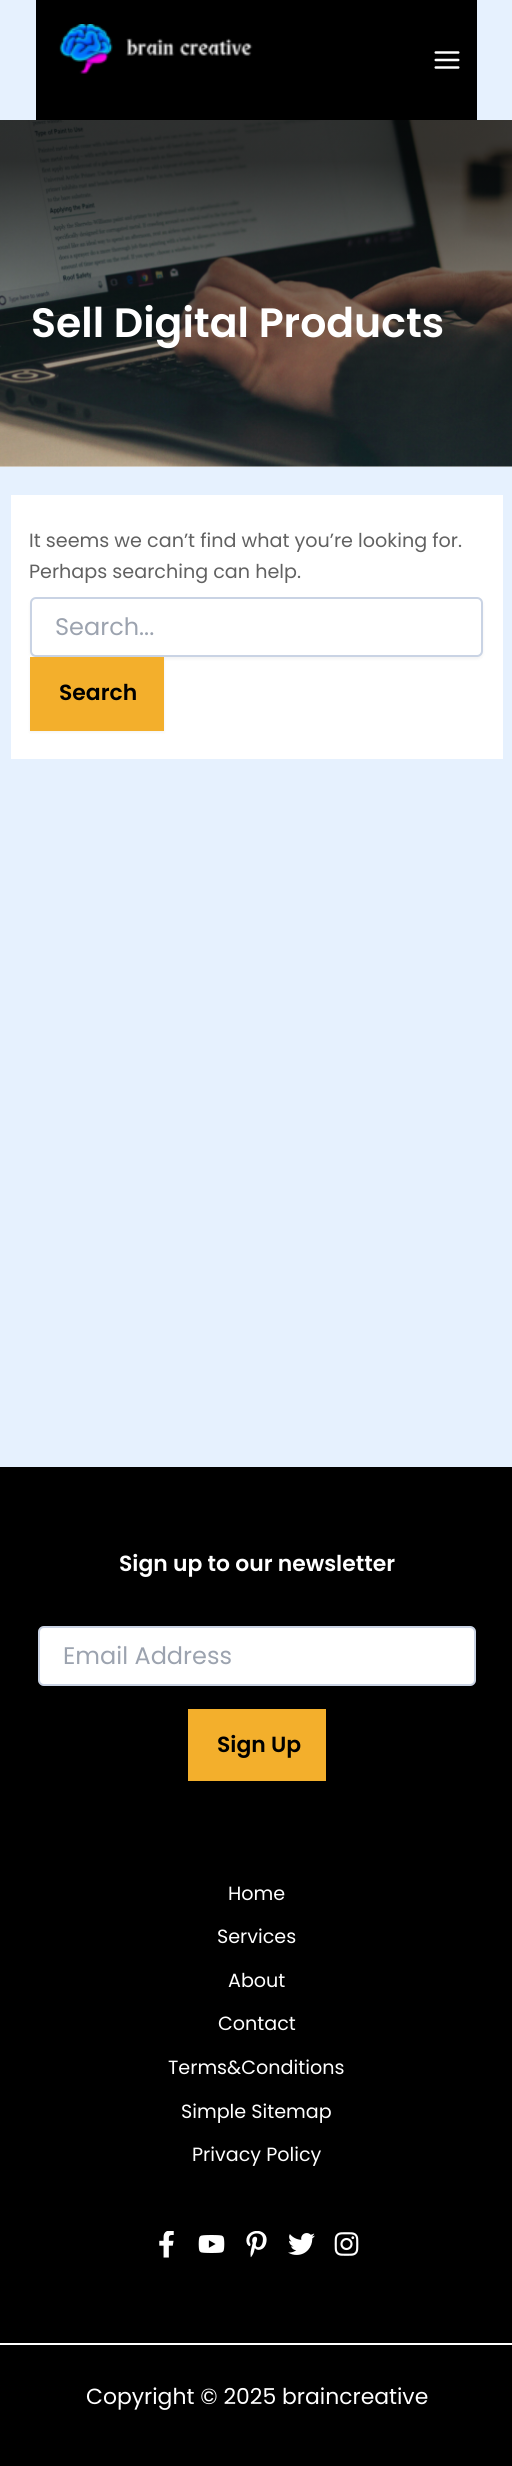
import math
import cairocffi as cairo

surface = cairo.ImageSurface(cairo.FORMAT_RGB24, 512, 2466)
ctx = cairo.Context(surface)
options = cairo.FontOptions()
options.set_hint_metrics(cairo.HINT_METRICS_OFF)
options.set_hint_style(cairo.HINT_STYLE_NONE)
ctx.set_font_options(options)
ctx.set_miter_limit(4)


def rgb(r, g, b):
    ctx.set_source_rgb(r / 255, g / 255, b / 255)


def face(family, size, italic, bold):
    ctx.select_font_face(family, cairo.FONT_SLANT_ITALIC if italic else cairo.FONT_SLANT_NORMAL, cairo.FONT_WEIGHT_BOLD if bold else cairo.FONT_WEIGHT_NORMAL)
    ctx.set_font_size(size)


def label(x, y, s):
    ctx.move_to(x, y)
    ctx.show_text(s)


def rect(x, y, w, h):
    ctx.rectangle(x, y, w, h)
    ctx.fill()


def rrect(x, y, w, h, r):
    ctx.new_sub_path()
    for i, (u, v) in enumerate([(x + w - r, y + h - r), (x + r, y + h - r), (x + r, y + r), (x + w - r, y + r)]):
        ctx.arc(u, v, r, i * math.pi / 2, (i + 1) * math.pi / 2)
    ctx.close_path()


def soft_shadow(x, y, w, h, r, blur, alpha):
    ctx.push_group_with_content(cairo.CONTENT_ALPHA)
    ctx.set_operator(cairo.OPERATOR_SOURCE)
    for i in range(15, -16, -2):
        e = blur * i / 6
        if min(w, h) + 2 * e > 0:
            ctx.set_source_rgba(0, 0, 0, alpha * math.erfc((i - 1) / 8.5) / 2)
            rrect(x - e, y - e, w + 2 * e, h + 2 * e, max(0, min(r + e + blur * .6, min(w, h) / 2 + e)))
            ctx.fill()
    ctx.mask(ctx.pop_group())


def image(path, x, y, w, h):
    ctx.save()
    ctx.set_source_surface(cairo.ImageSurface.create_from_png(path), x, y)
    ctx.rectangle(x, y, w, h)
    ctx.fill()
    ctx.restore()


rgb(230, 241, 254)
ctx.paint()
rgb(0, 0, 0)
rect(36, 0, 441, 120)
image('image0.png', 59, 24, 194, 50)
image('image1.png', 434, 51, 26, 18)
rgb(238, 238, 238)
rect(0, 466, 512, 1)
image('image2.png', 0, 120, 512, 347)
face('Poppins SemiBold', 41, 0, 0)
rgb(255, 255, 255)
label(31, 337, 'Sell Digital Products')
rect(11, 495, 492, 264)
face('Poppins', 19.15, 0, 0)
rgb(97, 97, 97)
label(29, 547, 'It seems we can’t find what you’re looking for.')
label(29, 578, 'Perhaps searching can help.')
rgb(0, 0, 0)
soft_shadow(30, 599, 453, 60, 6, 1.5, 0.05)
rgb(255, 255, 255)
rrect(31, 598, 451, 58, 5)
ctx.fill_preserve()
rgb(201, 211, 228)
ctx.stroke()
face('Poppins', 24, 0, 0)
rgb(156, 163, 175)
label(55, 635, 'Search...')
rgb(0, 0, 0)
soft_shadow(30, 659, 134, 73, 0, 1.5, 0.05)
rgb(243, 175, 44)
rect(30, 657, 134, 74)
face('Poppins SemiBold', 21.9, 0, 0)
rgb(0, 0, 0)
label(59, 700, 'Search')
rect(0, 1467, 512, 876)
rgb(255, 255, 255)
label(119, 1571, 'Sign up to our newsletter')
rrect(38, 1626, 438, 60, 6)
ctx.fill()
rrect(39, 1627, 436, 58, 5)
ctx.set_source_rgba(0, 0.176, 0.502, 0.21)
ctx.stroke()
face('Poppins', 24, 0, 0)
rgb(156, 163, 175)
label(63, 1664, 'Email Address')
rgb(243, 175, 44)
rect(188, 1709, 138, 72)
face('Poppins SemiBold', 21.9, 0, 0)
rgb(0, 0, 0)
label(217, 1752, 'Sign Up')
face('Poppins', 19.15, 0, 0)
rgb(255, 255, 255)
label(228, 1900, 'Home')
label(217, 1943, 'Services')
label(228, 1987, 'About')
label(218, 2030, 'Contact')
label(168, 2074, 'Terms&Conditions')
label(181, 2118, 'Simple Sitemap')
label(192, 2161, 'Privacy Policy')
image('image3.png', 159, 2231, 15, 27)
image('image4.png', 198, 2235, 27, 18)
image('image5.png', 246, 2231, 21, 27)
image('image6.png', 288, 2233, 27, 22)
image('image7.png', 334, 2232, 25, 24)
rgb(0, 0, 0)
rect(0, 2345, 512, 121)
rgb(255, 255, 255)
rect(0, 2343, 512, 2)
face('Poppins', 21.9, 0, 0)
label(86, 2404, 'Copyright © 2025 braincreative')
surface.write_to_png('render.png')
